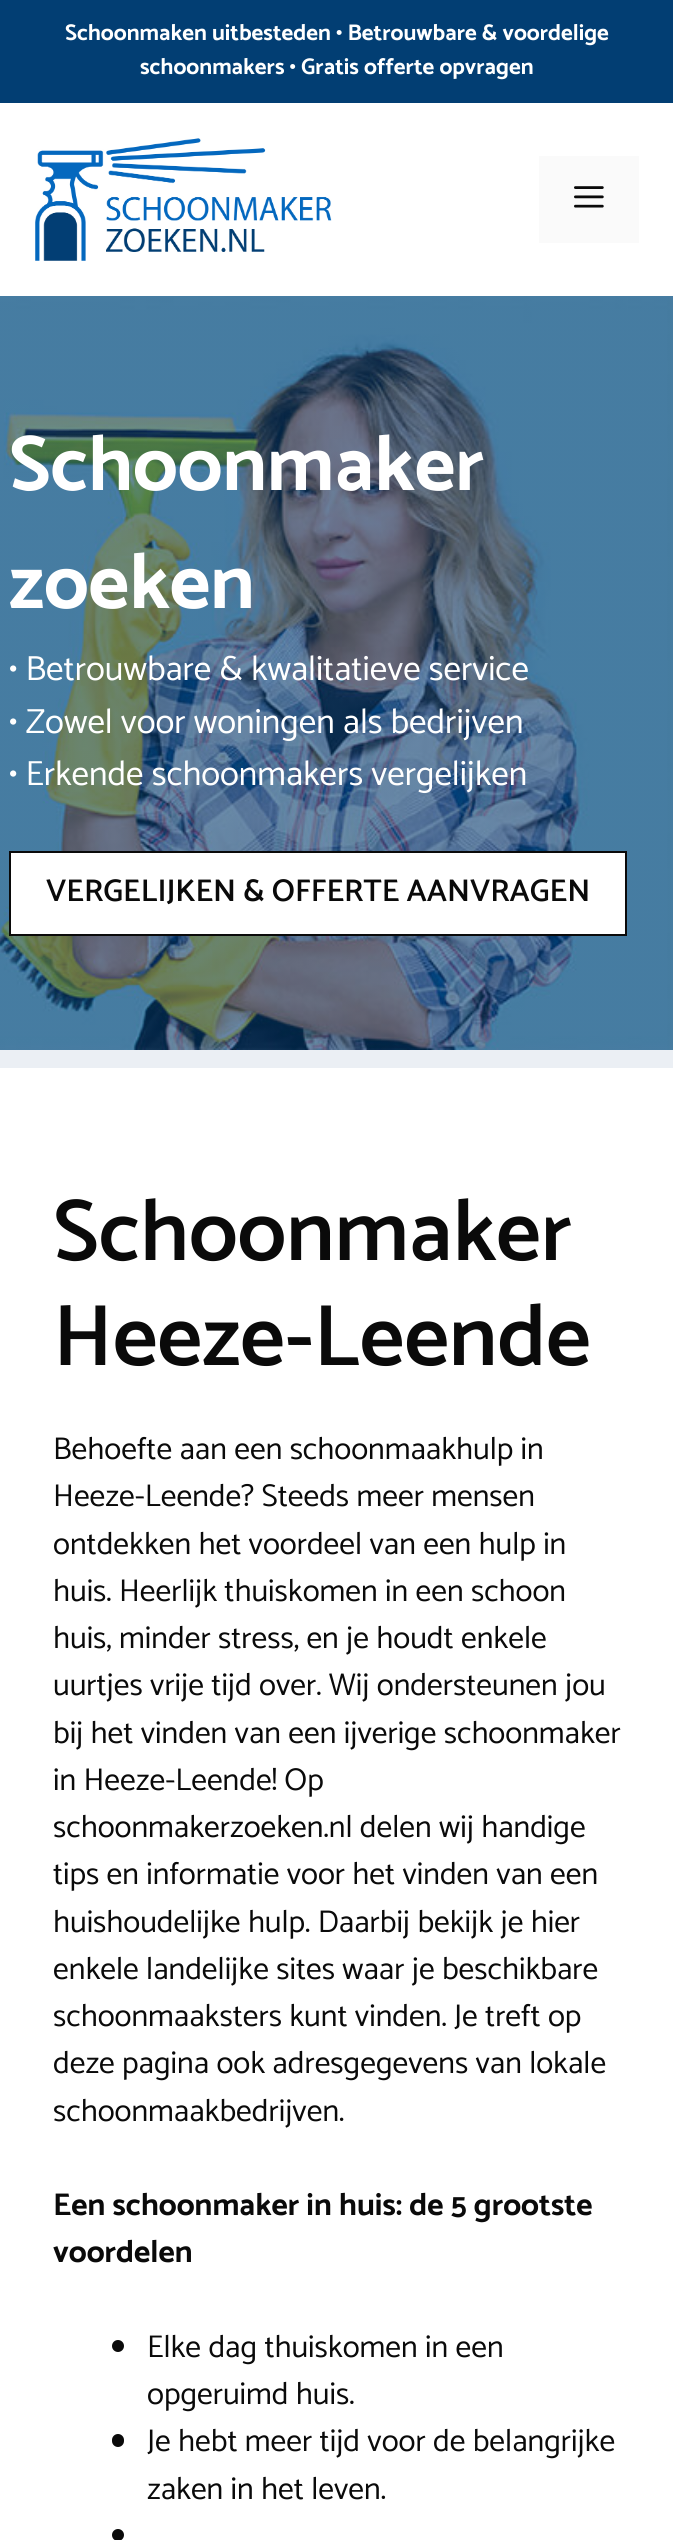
import math
import cairocffi as cairo

surface = cairo.ImageSurface(cairo.FORMAT_RGB24, 673, 2540)
ctx = cairo.Context(surface)
options = cairo.FontOptions()
options.set_hint_metrics(cairo.HINT_METRICS_OFF)
options.set_hint_style(cairo.HINT_STYLE_NONE)
ctx.set_font_options(options)
ctx.set_miter_limit(4)


def rgb(r, g, b):
    ctx.set_source_rgb(r / 255, g / 255, b / 255)


def face(family, size, italic, bold):
    ctx.select_font_face(family, cairo.FONT_SLANT_ITALIC if italic else cairo.FONT_SLANT_NORMAL, cairo.FONT_WEIGHT_BOLD if bold else cairo.FONT_WEIGHT_NORMAL)
    ctx.set_font_size(size)


def label(x, y, s):
    ctx.move_to(x, y)
    ctx.show_text(s)


def rect(x, y, w, h):
    ctx.rectangle(x, y, w, h)
    ctx.fill()


def rrect(x, y, w, h, r):
    ctx.new_sub_path()
    for i, (u, v) in enumerate([(x + w - r, y + h - r), (x + r, y + h - r), (x + r, y + r), (x + w - r, y + r)]):
        ctx.arc(u, v, r, i * math.pi / 2, (i + 1) * math.pi / 2)
    ctx.close_path()


def image(path, x, y, w, h):
    ctx.save()
    ctx.set_source_surface(cairo.ImageSurface.create_from_png(path), x, y)
    ctx.rectangle(x, y, w, h)
    ctx.fill()
    ctx.restore()


rgb(235, 239, 244)
ctx.paint()
rgb(2, 62, 115)
rect(0, 0, 673, 103)
face('Catamaran', 22.75, 0, 1)
rgb(255, 255, 255)
label(65, 40, 'Schoonmaken uitbesteden • Betrouwbare & voordelige')
label(140, 74, 'schoonmakers • Gratis offerte opvragen')
rect(0, 103, 673, 193)
image('image0.png', 35, 138, 297, 123)
rgb(250, 250, 250)
rect(539, 156, 100, 87)
image('image1.png', 574, 186, 30, 22)
image('image2.png', 0, 296, 673, 754)
face('Catamaran', 78.75, 0, 1)
rgb(255, 255, 255)
label(9, 490, 'Schoonmaker')
label(9, 608, 'zoeken')
face('Catamaran', 35, 0, 0)
label(9, 680, '• Betrouwbare & kwalitatieve service')
label(9, 733, '• Zowel voor woningen als bedrijven')
label(9, 785, '• Erkende schoonmakers vergelijken')
ctx.rectangle(10, 852, 616, 83)
ctx.fill_preserve()
rgb(10, 10, 10)
ctx.stroke()
face('Catamaran SemiBold', 31.5, 0, 0)
label(46, 901, 'VERGELIJKEN & OFFERTE AANVRAGEN')
rgb(255, 255, 255)
rect(0, 1068, 673, 1472)
face('Catamaran SemiBold', 87.5, 0, 0)
rgb(10, 10, 10)
label(53, 1260, 'Schoonmaker')
label(53, 1365, 'Heeze-Leende')
face('Catamaran', 31.5, 0, 0)
label(53, 1459, 'Behoefte aan een schoonmaakhulp in')
label(53, 1506, 'Heeze-Leende? Steeds meer mensen')
label(53, 1554, 'ontdekken het voordeel van een hulp in')
label(53, 1601, 'huis. Heerlijk thuiskomen in een schoon')
label(53, 1648, 'huis, minder stress, en je houdt enkele')
label(53, 1695, 'uurtjes vrije tijd over. Wij ondersteunen jou')
label(53, 1743, 'bij het vinden van een ijverige schoonmaker')
label(53, 1790, 'in Heeze-Leende! Op')
label(53, 1837, 'schoonmakerzoeken.nl delen wij handige')
label(53, 1884, 'tips en informatie voor het vinden van een')
label(53, 1932, 'huishoudelijke hulp. Daarbij bekijk je hier')
label(53, 1979, 'enkele landelijke sites waar je beschikbare')
label(53, 2026, 'schoonmaaksters kunt vinden. Je treft op')
label(53, 2073, 'deze pagina ook adresgegevens van lokale')
label(53, 2121, 'schoonmaakbedrijven.')
face('Catamaran', 31.5, 0, 1)
label(53, 2215, 'Een schoonmaker in huis: de 5 grootste')
label(53, 2262, 'voordelen')
ctx.new_path()
ctx.arc(118, 2346, 6, 0, 2 * math.pi)
ctx.fill()
face('Catamaran', 31.5, 0, 0)
label(147, 2357, 'Elke dag thuiskomen in een')
label(147, 2404, 'opgeruimd huis.')
rrect(112, 2434, 12, 13, 6)
ctx.fill()
label(147, 2451, 'Je hebt meer tijd voor de belangrijke')
label(147, 2499, 'zaken in het leven.')
ctx.new_path()
ctx.arc(118, 2535, 6, 0, 2 * math.pi)
ctx.fill()
surface.write_to_png('render.png')
